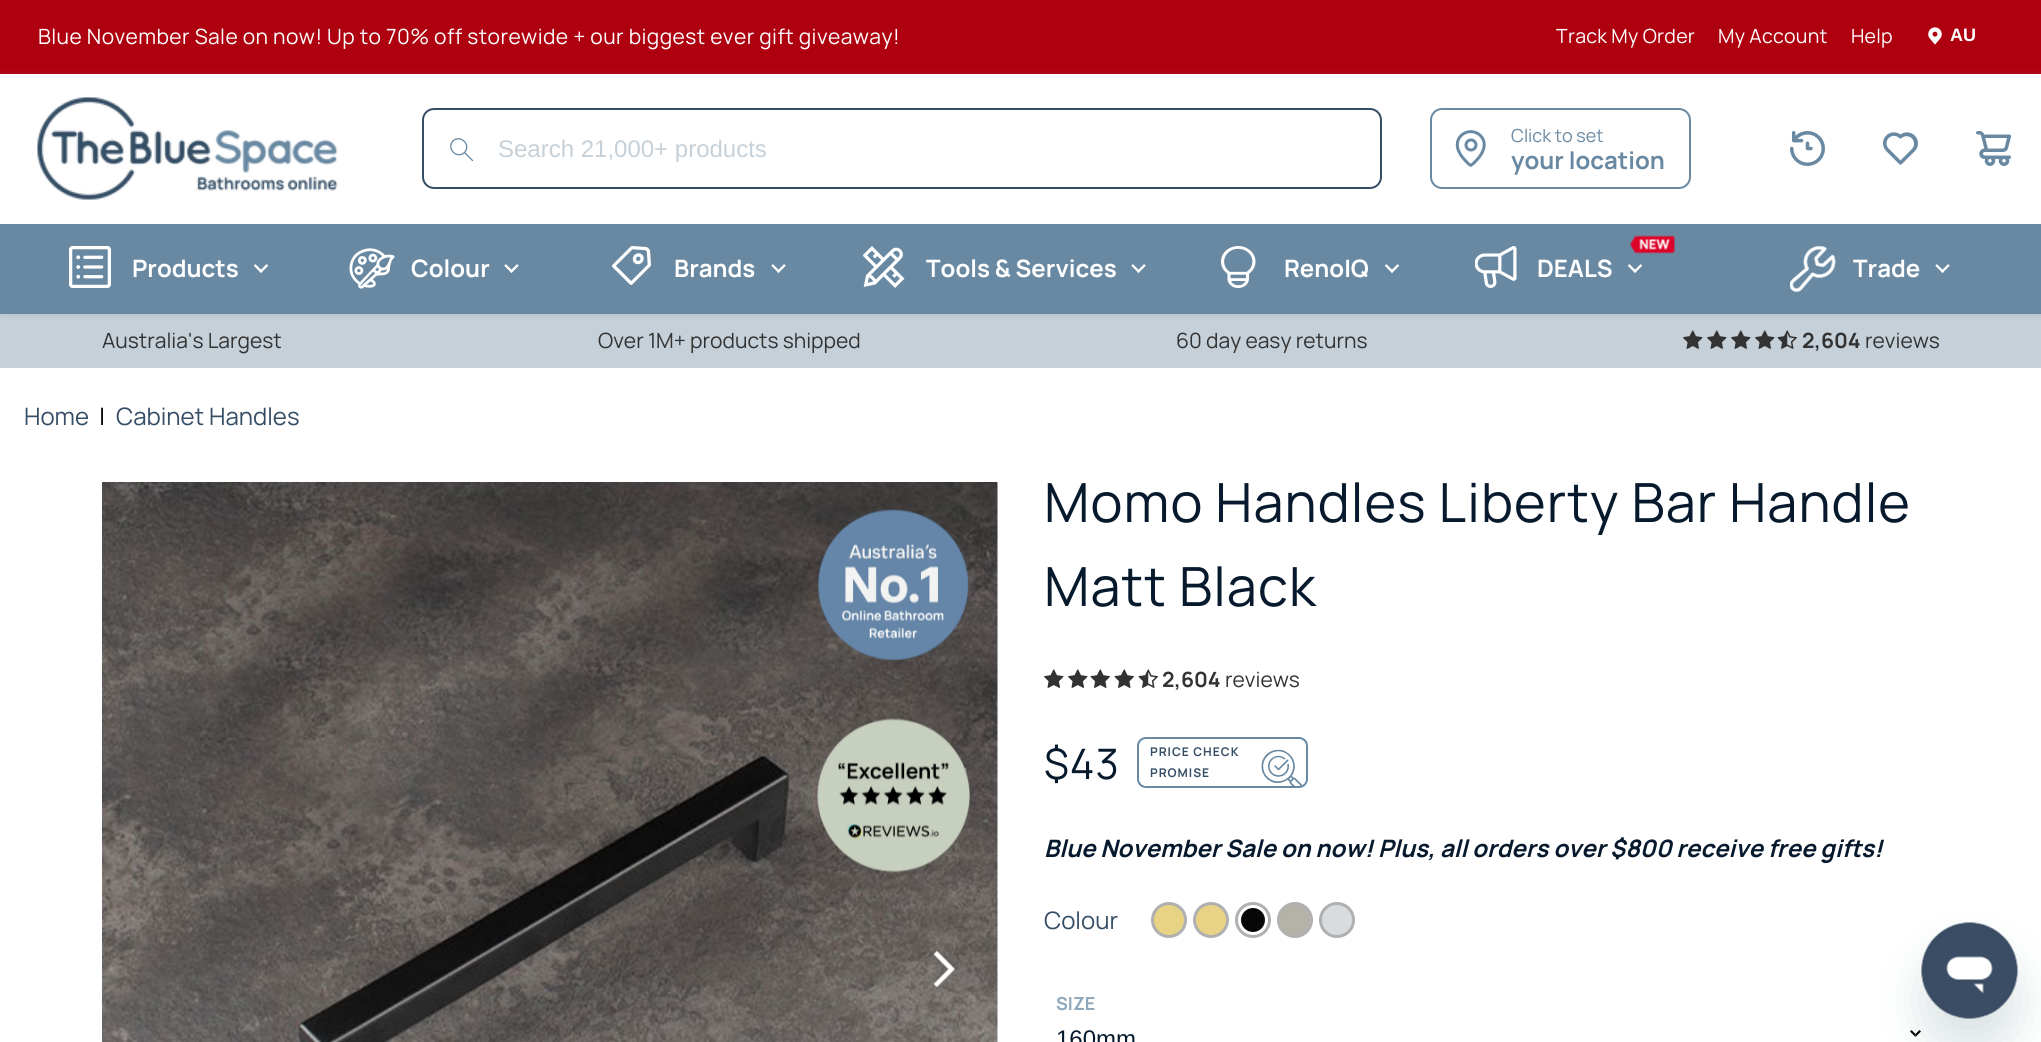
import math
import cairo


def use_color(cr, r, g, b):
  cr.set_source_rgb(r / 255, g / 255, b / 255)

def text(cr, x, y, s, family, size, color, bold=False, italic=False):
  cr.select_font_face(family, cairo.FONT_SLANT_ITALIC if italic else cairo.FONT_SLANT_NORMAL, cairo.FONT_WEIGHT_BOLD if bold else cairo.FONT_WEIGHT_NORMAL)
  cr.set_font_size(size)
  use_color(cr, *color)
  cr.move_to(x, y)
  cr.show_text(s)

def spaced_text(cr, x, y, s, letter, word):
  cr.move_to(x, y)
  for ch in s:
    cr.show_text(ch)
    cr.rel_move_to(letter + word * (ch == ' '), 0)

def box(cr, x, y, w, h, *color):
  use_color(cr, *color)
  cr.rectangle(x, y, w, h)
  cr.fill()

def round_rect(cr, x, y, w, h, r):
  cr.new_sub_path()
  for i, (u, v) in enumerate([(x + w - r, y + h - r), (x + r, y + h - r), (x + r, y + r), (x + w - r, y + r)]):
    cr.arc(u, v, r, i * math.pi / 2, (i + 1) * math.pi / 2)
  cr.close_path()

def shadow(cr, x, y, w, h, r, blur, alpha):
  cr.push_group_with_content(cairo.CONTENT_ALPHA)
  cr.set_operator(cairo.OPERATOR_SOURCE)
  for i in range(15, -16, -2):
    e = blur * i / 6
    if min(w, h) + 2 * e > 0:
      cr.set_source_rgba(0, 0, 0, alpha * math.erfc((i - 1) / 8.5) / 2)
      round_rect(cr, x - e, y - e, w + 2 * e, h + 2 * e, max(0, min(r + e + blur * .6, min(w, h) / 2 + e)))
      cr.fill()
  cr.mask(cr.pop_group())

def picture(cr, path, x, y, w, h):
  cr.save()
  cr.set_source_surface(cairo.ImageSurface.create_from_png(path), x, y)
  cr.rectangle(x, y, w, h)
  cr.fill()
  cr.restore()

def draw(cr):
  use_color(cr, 255, 255, 255)
  cr.paint()
  box(cr, 0, 0, 2041, 74, 175, 0, 15)
  picture(cr, "img_01.png", 1928, 27, 14, 18)
  box(cr, 0, 314, 2041, 54, 197, 208, 216)
  cr.save()
  cr.set_fill_rule(cairo.FILL_RULE_EVEN_ODD)
  cr.new_path()
  cr.move_to(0, 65)
  cr.line_to(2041, 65)
  cr.line_to(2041, 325)
  cr.line_to(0, 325)
  cr.close_path()
  cr.move_to(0, 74)
  cr.line_to(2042, 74)
  cr.line_to(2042, 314)
  cr.line_to(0, 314)
  cr.close_path()
  cr.clip()
  use_color(cr, 128, 128, 128)
  shadow(cr, 0, 75, 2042, 240, 0, 3, 0.25)
  cr.restore()
  picture(cr, "img_02.png", 37, 97, 301, 103)
  round_rect(cr, 423, 109, 958, 79, 11)
  use_color(cr, 53, 78, 102)
  cr.stroke()
  cr.new_path()
  cr.move_to(453, 141)
  cr.curve_to(460.5, 134, 471.5, 145, 464.5, 152.5)
  cr.curve_to(457, 159.5, 446, 148.5, 453, 141)
  cr.close_path()
  use_color(cr, 105, 137, 163)
  cr.set_line_width(1.3)
  cr.stroke()
  cr.new_path()
  cr.move_to(472.5, 160.5)
  cr.line_to(464.5, 152.5)
  cr.set_line_cap(cairo.LINE_CAP_ROUND)
  cr.stroke()
  round_rect(cr, 1431, 109, 259, 79, 11)
  cr.set_line_width(2)
  cr.set_line_cap(cairo.LINE_CAP_BUTT)
  cr.stroke()
  picture(cr, "img_03.png", 1455, 130, 31, 37)
  picture(cr, "img_04.png", 1790, 131, 35, 35)
  picture(cr, "img_05.png", 1883, 132, 35, 33)
  picture(cr, "img_06.png", 1976, 131, 35, 35)
  box(cr, 0, 224, 2041, 90, 105, 137, 163)
  picture(cr, "img_07.png", 69, 246, 42, 42)
  picture(cr, "img_08.png", 254, 264, 15, 9)
  picture(cr, "img_09.png", 349, 248, 46, 41)
  picture(cr, "img_10.png", 504, 264, 15, 9)
  picture(cr, "img_11.png", 612, 246, 39, 39)
  picture(cr, "img_10.png", 771, 264, 15, 9)
  picture(cr, "img_12.png", 863, 246, 42, 42)
  picture(cr, "img_10.png", 1131, 264, 15, 9)
  picture(cr, "img_13.png", 1221, 246, 35, 42)
  picture(cr, "img_08.png", 1385, 264, 15, 9)
  picture(cr, "img_14.png", 1475, 246, 42, 42)
  picture(cr, "img_15.png", 1630, 235, 45, 19)
  picture(cr, "img_08.png", 1628, 264, 15, 9)
  picture(cr, "img_16.png", 1790, 246, 46, 46)
  picture(cr, "img_10.png", 1935, 264, 15, 9)
  picture(cr, "img_17.png", 1683, 330, 20, 19)
  picture(cr, "img_17.png", 1707, 330, 20, 19)
  picture(cr, "img_17.png", 1731, 330, 20, 19)
  picture(cr, "img_17.png", 1755, 330, 20, 19)
  picture(cr, "img_18.png", 1777, 330, 20, 19)
  picture(cr, "img_19.png", 102, 482, 896, 560)
  picture(cr, "img_20.png", 818, 509, 151, 152)
  picture(cr, "img_21.png", 817, 718, 153, 155)
  picture(cr, "img_22.png", 932, 949, 27, 40)
  picture(cr, "img_23.png", 1044, 669, 20, 19)
  picture(cr, "img_23.png", 1068, 669, 20, 19)
  picture(cr, "img_24.png", 1090, 669, 20, 19)
  picture(cr, "img_24.png", 1114, 669, 20, 19)
  picture(cr, "img_25.png", 1138, 669, 20, 19)
  round_rect(cr, 1138, 738, 169, 49, 8)
  cr.stroke()
  picture(cr, "img_26.png", 1261, 749, 42, 37)
  use_color(cr, 232, 211, 132)
  cr.arc(1169, 920, 16.5, 0, 2 * math.pi)
  cr.fill_preserve()
  use_color(cr, 176, 176, 176)
  cr.set_line_width(3)
  cr.stroke()
  use_color(cr, 232, 211, 132)
  cr.arc(1211, 920, 16.5, 0, 2 * math.pi)
  cr.fill_preserve()
  use_color(cr, 176, 176, 176)
  cr.stroke()
  use_color(cr, 7, 7, 7)
  cr.arc(1253, 920, 13.5, 0, 2 * math.pi)
  cr.fill_preserve()
  use_color(cr, 255, 255, 255)
  cr.stroke()
  cr.arc(1253, 920, 16.5, 0, 2 * math.pi)
  use_color(cr, 176, 176, 176)
  cr.stroke()
  use_color(cr, 181, 178, 167)
  cr.arc(1295, 920, 16.5, 0, 2 * math.pi)
  cr.fill_preserve()
  use_color(cr, 176, 176, 176)
  cr.stroke()
  use_color(cr, 216, 220, 223)
  cr.arc(1337, 920, 16.5, 0, 2 * math.pi)
  cr.fill_preserve()
  use_color(cr, 176, 176, 176)
  cr.stroke()
  picture(cr, "img_27.png", 1910, 1030, 11, 7)
  use_color(cr, 23, 73, 77)
  shadow(cr, 1922, 953, 96, 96, 48, 22.5, 0.15)
  picture(cr, "img_28.png", 1921, 922, 97, 97)
  cr.select_font_face("Manrope")
  cr.set_font_size(21)
  use_color(cr, 255, 255, 255)
  spaced_text(cr, 38, 44, "Blue November Sale on now! Up to 70% off storewide + our biggest ever gift giveaway!", 0.42, 0)
  cr.set_font_size(19.5)
  spaced_text(cr, 1556, 43, "Track My Order", 0.25, 0)
  spaced_text(cr, 1718, 43, "My Account", 0.25, 0)
  spaced_text(cr, 1851, 43, "Help", 0.25, 0)
  text(cr, 1950, 41, "AU", "Liberation Sans", 18, (255, 255, 255), bold=True)
  text(cr, 498, 157, "Search 21,000+ products", "Liberation Sans", 24, (197, 208, 216))
  text(cr, 1511, 142, "Click to set", "Manrope", 18, (105, 137, 163))
  text(cr, 1511, 169, "your location", "Manrope", 24, (105, 137, 163), bold=True)
  text(cr, 132, 277, "Products", "Manrope", 24, (255, 255, 255), bold=True)
  text(cr, 411, 277, "Colour", "Manrope", 24, (255, 255, 255), bold=True)
  text(cr, 674, 277, "Brands", "Manrope", 24, (255, 255, 255), bold=True)
  text(cr, 926, 277, "Tools & Services", "Manrope", 24, (255, 255, 255), bold=True)
  text(cr, 1284, 277, "RenoIQ", "Manrope", 24, (255, 255, 255), bold=True)
  text(cr, 1537, 277, "DEALS", "Manrope", 24, (255, 255, 255), bold=True)
  text(cr, 1853, 277, "Trade", "Manrope", 24, (255, 255, 255), bold=True)
  text(cr, 102, 348, "Australia's Largest", "Manrope", 21, (51, 51, 51))
  text(cr, 598, 348, "Over 1M+ products shipped", "Manrope", 21, (51, 51, 51))
  text(cr, 1176, 348, "60 day easy returns", "Manrope", 21, (51, 51, 51))
  text(cr, 1802, 348, "2,604", "Manrope", 21, (51, 51, 51), bold=True)
  text(cr, 1865, 348, "reviews", "Manrope", 21, (51, 51, 51))
  text(cr, 24, 425, "Home", "Manrope", 24, (53, 78, 102))
  text(cr, 99, 425, "|", "Manrope", 24, (0, 0, 0))
  text(cr, 116, 425, "Cabinet Handles", "Manrope", 24, (53, 78, 102))
  cr.set_font_size(54)
  use_color(cr, 7, 26, 45)
  spaced_text(cr, 1044, 522, "Momo Handles Liberty Bar Handle", 1.1, 0)
  spaced_text(cr, 1044, 606, "Matt Black", 1.1, 0)
  text(cr, 1162, 687, "2,604", "Manrope", 21, (51, 51, 51), bold=True)
  text(cr, 1225, 687, "reviews", "Manrope", 21, (51, 51, 51))
  cr.set_font_size(42)
  use_color(cr, 7, 26, 45)
  spaced_text(cr, 1044, 779, "$43", 1, 0)
  cr.select_font_face("Manrope", cairo.FONT_SLANT_NORMAL, cairo.FONT_WEIGHT_BOLD)
  cr.set_font_size(12)
  use_color(cr, 53, 78, 102)
  spaced_text(cr, 1150, 756, "PRICE CHECK", 1, 0)
  spaced_text(cr, 1150, 777, "PROMISE", 1, 0)
  text(cr, 1044, 857, "Blue November Sale on now! Plus, all orders over $800 receive free gifts!", "Manrope", 24, (7, 26, 45), bold=True, italic=True)
  text(cr, 1044, 929, "Colour", "Manrope", 24, (53, 78, 102))
  text(cr, 1056, 1010, "SIZE", "Manrope", 18, (143, 167, 186), bold=True)
  text(cr, 1056, 1047, "160mm", "Liberation Sans", 24, (7, 26, 45))


surface = cairo.ImageSurface(cairo.FORMAT_RGB24, 2041, 1042)
cr = cairo.Context(surface)
options = cairo.FontOptions()
options.set_hint_metrics(cairo.HINT_METRICS_OFF)
options.set_hint_style(cairo.HINT_STYLE_NONE)
cr.set_font_options(options)
cr.set_miter_limit(4)
draw(cr)
surface.write_to_png("out.png")
